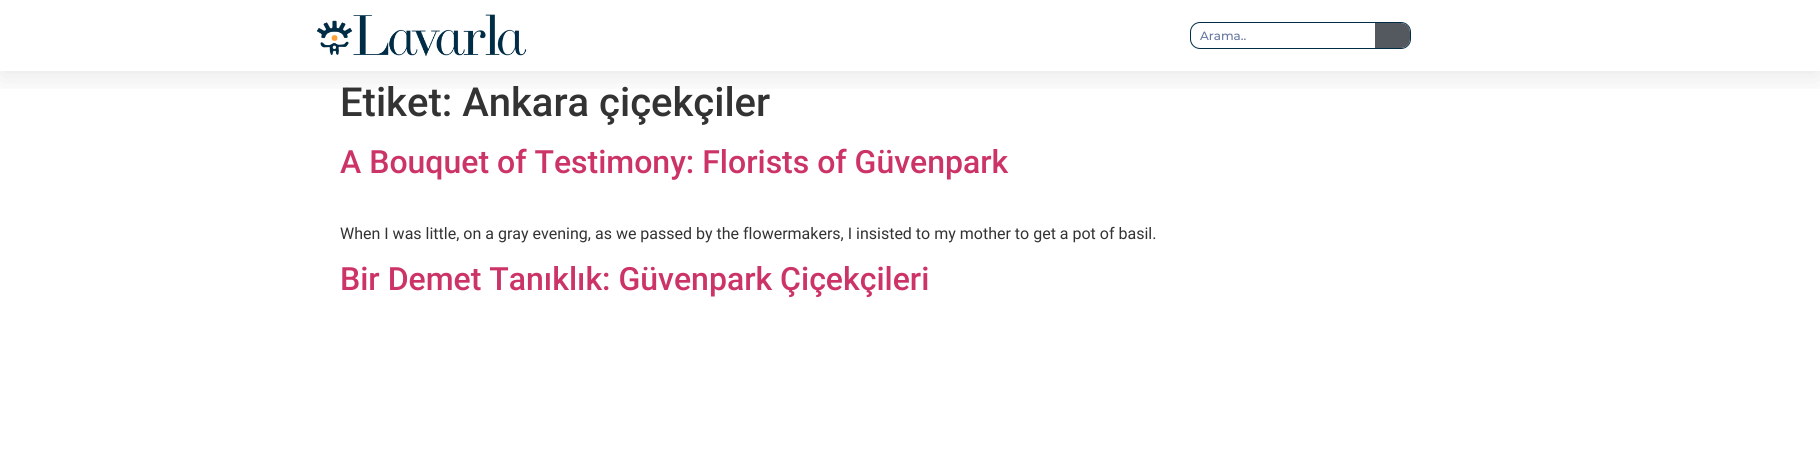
import math
import cairo


def use_color(cr, r, g, b):
  cr.set_source_rgb(r / 255, g / 255, b / 255)

def text(cr, x, y, s, family, size, color, bold=False, italic=False):
  cr.select_font_face(family, cairo.FONT_SLANT_ITALIC if italic else cairo.FONT_SLANT_NORMAL, cairo.FONT_WEIGHT_BOLD if bold else cairo.FONT_WEIGHT_NORMAL)
  cr.set_font_size(size)
  use_color(cr, *color)
  cr.move_to(x, y)
  cr.show_text(s)

def round_rect(cr, x, y, w, h, r):
  cr.new_sub_path()
  for i, (u, v) in enumerate([(x + w - r, y + h - r), (x + r, y + h - r), (x + r, y + r), (x + w - r, y + r)]):
    cr.arc(u, v, r, i * math.pi / 2, (i + 1) * math.pi / 2)
  cr.close_path()

def shadow(cr, x, y, w, h, r, blur, alpha):
  cr.push_group_with_content(cairo.CONTENT_ALPHA)
  cr.set_operator(cairo.OPERATOR_SOURCE)
  for i in range(15, -16, -2):
    e = blur * i / 6
    if min(w, h) + 2 * e > 0:
      cr.set_source_rgba(0, 0, 0, alpha * math.erfc((i - 1) / 8.5) / 2)
      round_rect(cr, x - e, y - e, w + 2 * e, h + 2 * e, max(0, min(r + e + blur * .6, min(w, h) / 2 + e)))
      cr.fill()
  cr.mask(cr.pop_group())

def picture(cr, path, x, y, w, h):
  cr.save()
  cr.set_source_surface(cairo.ImageSurface.create_from_png(path), x, y)
  cr.rectangle(x, y, w, h)
  cr.fill()
  cr.restore()

def draw(cr):
  use_color(cr, 255, 255, 255)
  cr.paint()
  cr.save()
  cr.rectangle(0, 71, 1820, 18)
  cr.clip()
  use_color(cr, 0, 0, 0)
  shadow(cr, 0, 5, 1820, 71, 0, 15, 0.1)
  cr.restore()
  picture(cr, "img_01.png", 316, 14, 211, 43)
  round_rect(cr, 1190.5, 22.5, 220, 26, 9.5)
  use_color(cr, 0, 44, 70)
  cr.set_line_width(1)
  cr.stroke()
  use_color(cr, 84, 89, 95)
  cr.new_path()
  cr.move_to(1375, 23)
  cr.line_to(1401, 23)
  cr.curve_to(1406, 23, 1410, 27, 1410, 32)
  cr.line_to(1410, 39)
  cr.curve_to(1410, 44, 1406, 48, 1401, 48)
  cr.line_to(1375, 48)
  cr.close_path()
  cr.fill()
  text(cr, 1200, 40, "Arama..", "Montserrat Medium", 12, (102, 118, 160))
  text(cr, 340, 116, "Etiket: Ankara çiçekçiler", "Roboto Medium", 40, (51, 51, 51))
  text(cr, 340, 173, "A Bouquet of Testimony: Florists of Güvenpark", "Roboto Medium", 32, (204, 51, 102))
  text(cr, 340, 239, "When I was little, on a gray evening, as we passed by the flowermakers, I insisted to my mother to get a pot of basil.", "Roboto", 16, (51, 51, 51))
  text(cr, 340, 290, "Bir Demet Tanıklık: Güvenpark Çiçekçileri", "Roboto Medium", 32, (204, 51, 102))


surface = cairo.ImageSurface(cairo.FORMAT_RGB24, 1820, 471)
cr = cairo.Context(surface)
options = cairo.FontOptions()
options.set_hint_metrics(cairo.HINT_METRICS_OFF)
options.set_hint_style(cairo.HINT_STYLE_NONE)
cr.set_font_options(options)
cr.set_miter_limit(4)
draw(cr)
surface.write_to_png("out.png")
